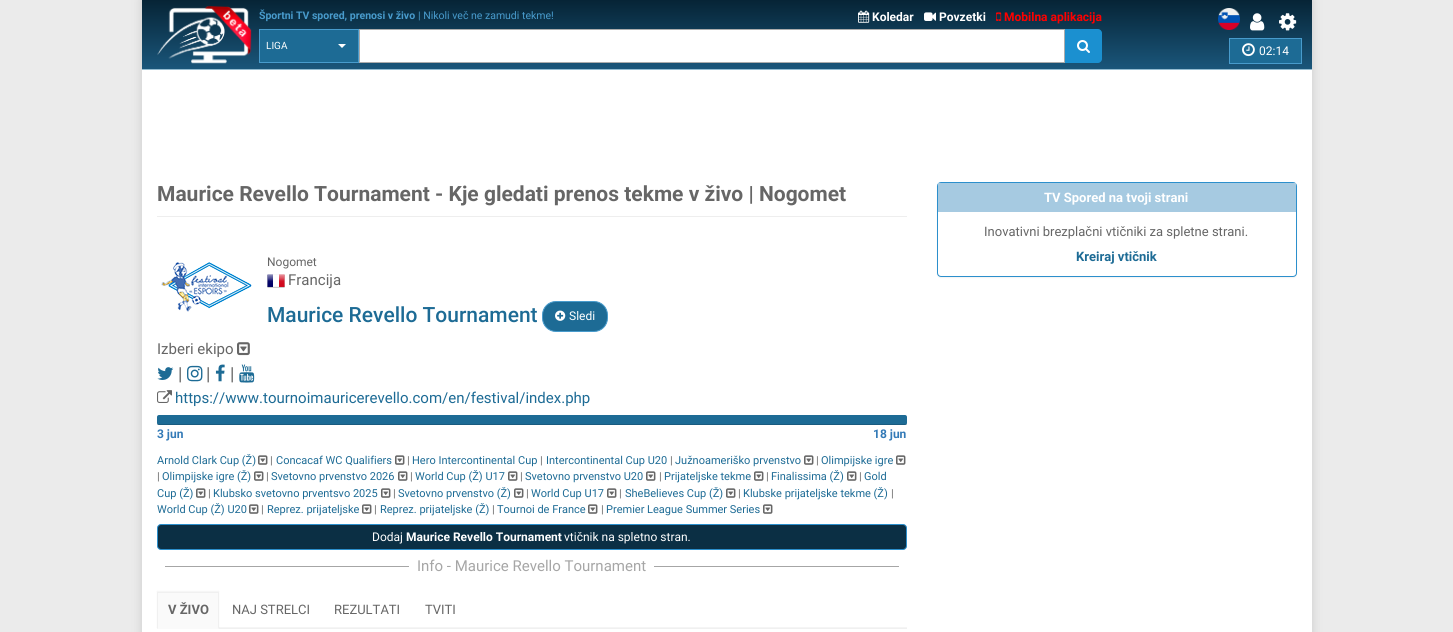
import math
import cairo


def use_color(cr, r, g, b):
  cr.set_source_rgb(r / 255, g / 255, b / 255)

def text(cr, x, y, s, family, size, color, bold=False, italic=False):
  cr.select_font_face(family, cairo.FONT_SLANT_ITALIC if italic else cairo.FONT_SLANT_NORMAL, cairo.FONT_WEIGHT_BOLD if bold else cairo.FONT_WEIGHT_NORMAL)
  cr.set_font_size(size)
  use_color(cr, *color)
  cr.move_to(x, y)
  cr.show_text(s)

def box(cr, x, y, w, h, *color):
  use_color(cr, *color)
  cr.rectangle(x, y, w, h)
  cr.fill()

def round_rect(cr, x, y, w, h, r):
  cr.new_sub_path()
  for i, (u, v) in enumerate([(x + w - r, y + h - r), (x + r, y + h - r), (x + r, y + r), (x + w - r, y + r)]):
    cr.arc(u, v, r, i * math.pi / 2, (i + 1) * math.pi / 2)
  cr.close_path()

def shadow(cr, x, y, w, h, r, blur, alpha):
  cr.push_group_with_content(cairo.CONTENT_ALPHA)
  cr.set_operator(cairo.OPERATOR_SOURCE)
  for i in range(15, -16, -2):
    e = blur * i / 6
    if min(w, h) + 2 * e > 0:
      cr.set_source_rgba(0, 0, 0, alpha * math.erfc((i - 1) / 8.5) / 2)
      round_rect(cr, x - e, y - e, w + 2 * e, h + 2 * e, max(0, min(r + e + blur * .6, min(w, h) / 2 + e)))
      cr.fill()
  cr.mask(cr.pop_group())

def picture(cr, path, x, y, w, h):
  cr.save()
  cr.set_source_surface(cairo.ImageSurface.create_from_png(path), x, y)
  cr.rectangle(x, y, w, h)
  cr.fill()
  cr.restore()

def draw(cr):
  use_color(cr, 235, 235, 235)
  cr.paint()
  use_color(cr, 202, 202, 202)
  shadow(cr, 142, 0, 1170, 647, 0, 5, 1)
  box(cr, 142, 70, 1170, 562, 255, 255, 255)
  box(cr, 142, 69, 1170, 1, 148, 188, 209)
  gradient = cairo.LinearGradient(727, 0, 727, 69)
  gradient.add_color_stop_rgba(0, 0.024, 0.141, 0.208, 1)
  gradient.add_color_stop_rgba(1, 0.102, 0.337, 0.482, 1)
  cr.set_source(gradient)
  cr.rectangle(142, 0, 1170, 69)
  cr.fill()
  picture(cr, "img_01.png", 157, 6, 95, 58)
  picture(cr, "img_02.png", 858, 10, 12, 13)
  picture(cr, "img_03.png", 924, 12, 12, 9)
  picture(cr, "img_04.png", 996, 12, 6, 9)
  use_color(cr, 29, 107, 149)
  cr.rectangle(259.5, 29.5, 99, 33)
  cr.fill_preserve()
  use_color(cr, 72, 155, 204)
  cr.set_line_width(1)
  cr.stroke()
  use_color(cr, 255, 255, 255)
  cr.new_path()
  cr.move_to(338, 44)
  cr.line_to(346, 44)
  cr.line_to(342, 48)
  cr.close_path()
  cr.fill()
  cr.rectangle(359.5, 29.5, 705, 33)
  cr.fill_preserve()
  use_color(cr, 172, 172, 172)
  cr.stroke()
  use_color(cr, 27, 144, 208)
  cr.new_path()
  cr.move_to(1065, 29)
  cr.line_to(1098, 29)
  cr.curve_to(1100, 29, 1102, 31, 1102, 33)
  cr.line_to(1102, 59)
  cr.curve_to(1102, 61, 1100, 63, 1098, 63)
  cr.line_to(1065, 63)
  cr.close_path()
  cr.fill()
  picture(cr, "img_05.png", 1077, 40, 13, 13)
  picture(cr, "img_06.png", 1218, 8, 22, 22)
  picture(cr, "img_07.png", 1250, 13, 15, 18)
  picture(cr, "img_08.png", 1279, 13, 18, 18)
  use_color(cr, 29, 107, 149)
  cr.rectangle(1229.5, 38.5, 72, 25)
  cr.fill_preserve()
  use_color(cr, 72, 155, 204)
  cr.stroke()
  picture(cr, "img_09.png", 1242, 43, 13, 14)
  box(cr, 157, 216, 750, 1, 238, 238, 238)
  picture(cr, "img_10.png", 267, 274, 18, 14)
  use_color(cr, 29, 107, 149)
  round_rect(cr, 542.5, 301.5, 65, 30, 13.5)
  cr.fill_preserve()
  use_color(cr, 72, 155, 204)
  cr.stroke()
  picture(cr, "img_11.png", 555, 310, 11, 11)
  picture(cr, "img_12.png", 237, 342, 13, 14)
  picture(cr, "img_13.png", 157, 367, 17, 13)
  picture(cr, "img_14.png", 187, 365, 16, 17)
  picture(cr, "img_15.png", 215, 364, 10, 18)
  picture(cr, "img_16.png", 239, 364, 16, 19)
  picture(cr, "img_17.png", 157, 390, 15, 13)
  picture(cr, "img_18.png", 161, 262, 91, 50)
  use_color(cr, 29, 107, 149)
  round_rect(cr, 157, 415, 750, 10, 2)
  cr.fill()
  cr.set_source_rgba(0, 0, 0, 0.15)
  cr.rectangle(157, 424, 750, 1)
  cr.fill()
  picture(cr, "img_19.png", 258, 455, 10, 10)
  picture(cr, "img_19.png", 395, 455, 10, 10)
  picture(cr, "img_19.png", 804, 455, 10, 10)
  picture(cr, "img_19.png", 896, 455, 10, 10)
  picture(cr, "img_19.png", 254, 471, 10, 10)
  picture(cr, "img_19.png", 398, 471, 10, 10)
  picture(cr, "img_19.png", 508, 471, 10, 10)
  picture(cr, "img_19.png", 646, 471, 10, 10)
  picture(cr, "img_19.png", 754, 471, 10, 10)
  picture(cr, "img_19.png", 847, 471, 10, 10)
  picture(cr, "img_19.png", 196, 488, 10, 10)
  picture(cr, "img_19.png", 381, 488, 10, 10)
  picture(cr, "img_19.png", 514, 488, 10, 10)
  picture(cr, "img_19.png", 607, 488, 10, 10)
  picture(cr, "img_19.png", 726, 488, 10, 10)
  picture(cr, "img_19.png", 249, 504, 10, 10)
  picture(cr, "img_19.png", 362, 504, 10, 10)
  picture(cr, "img_19.png", 588, 504, 10, 10)
  picture(cr, "img_19.png", 763, 504, 10, 10)
  use_color(cr, 11, 47, 68)
  round_rect(cr, 157.5, 524.5, 749, 25, 3.5)
  cr.fill_preserve()
  use_color(cr, 44, 143, 204)
  cr.stroke()
  box(cr, 165, 566, 244, 1, 166, 166, 166)
  box(cr, 654, 566, 245, 1, 166, 166, 166)
  box(cr, 219, 627, 688, 1, 245, 245, 245)
  box(cr, 219, 628, 688, 1, 240, 240, 240)
  use_color(cr, 0, 0, 0)
  shadow(cr, 157, 591, 62, 37, 0, 0.5, 0.04)
  box(cr, 157, 593, 62, 36, 250, 250, 250)
  box(cr, 157, 592, 62, 1, 240, 240, 240)
  cr.new_path()
  cr.move_to(219, 592)
  cr.line_to(219, 629)
  cr.line_to(218, 628)
  cr.line_to(218, 593)
  cr.close_path()
  cr.move_to(157, 629)
  cr.line_to(157, 592)
  cr.line_to(158, 593)
  cr.line_to(158, 628)
  cr.close_path()
  cr.fill()
  use_color(cr, 0, 0, 0)
  shadow(cr, 937, 183, 360, 95, 4, 0.5, 0.05)
  use_color(cr, 255, 255, 255)
  round_rect(cr, 937.5, 182.5, 359, 94, 3.5)
  cr.fill_preserve()
  use_color(cr, 44, 143, 204)
  cr.stroke()
  box(cr, 938, 183, 358, 29, 166, 202, 225)
  text(cr, 259, 19, "Športni TV spored, prenosi v živo", "Roboto", 10.5, (72, 155, 204), bold=True)
  text(cr, 418, 19, "| Nikoli več ne zamudi tekme!", "Roboto", 10.5, (72, 155, 204))
  text(cr, 872, 21, "Koledar", "Roboto", 12, (255, 255, 255), bold=True)
  text(cr, 939, 21, "Povzetki", "Roboto", 12, (255, 255, 255), bold=True)
  text(cr, 1004, 21, "Mobilna aplikacija", "Roboto", 12, (255, 0, 0), bold=True)
  text(cr, 266, 49, "LIGA", "Roboto", 10, (255, 255, 255))
  text(cr, 1259, 55, "02:14", "Roboto", 12, (255, 255, 255))
  text(cr, 157, 201, "Maurice Revello Tournament - Kje gledati prenos tekme v živo | Nogomet", "Roboto", 21, (102, 102, 102), bold=True)
  text(cr, 267, 266, "Nogomet", "Roboto", 12, (102, 102, 102))
  text(cr, 288, 285, "Francija", "Roboto", 15, (102, 102, 102))
  text(cr, 267, 322, "Maurice Revello Tournament", "Roboto Medium", 21, (29, 107, 149))
  text(cr, 569, 320, "Sledi", "Roboto", 12, (255, 255, 255))
  text(cr, 157, 354, "Izberi ekipo", "Roboto", 15, (102, 102, 102))
  text(cr, 178, 380, "|", "Roboto", 18, (102, 102, 102))
  text(cr, 206, 380, "|", "Roboto", 18, (102, 102, 102))
  text(cr, 230, 380, "|", "Roboto", 18, (102, 102, 102))
  text(cr, 175, 403, "https://www.tournoimauricerevello.com/en/festival/index.php", "Roboto", 15, (29, 107, 149))
  text(cr, 157, 438, "3 jun", "Roboto", 12, (51, 122, 183), bold=True)
  text(cr, 873, 438, "18 jun", "Roboto", 12, (51, 122, 183), bold=True)
  text(cr, 157, 464, "Arnold Clark Cup (Ž)", "Roboto", 11, (29, 107, 149))
  text(cr, 270, 464, "|", "Roboto", 11, (102, 102, 102))
  text(cr, 276, 464, "Concacaf WC Qualifiers", "Roboto", 11, (29, 107, 149))
  text(cr, 407, 464, "|", "Roboto", 11, (102, 102, 102))
  text(cr, 412, 464, "Hero Intercontinental Cup", "Roboto", 11, (29, 107, 149))
  text(cr, 540, 464, "|", "Roboto", 11, (102, 102, 102))
  text(cr, 546, 464, "Intercontinental Cup U20", "Roboto", 11, (29, 107, 149))
  text(cr, 670, 464, "|", "Roboto", 11, (102, 102, 102))
  text(cr, 675, 464, "Južnoameriško prvenstvo", "Roboto", 11, (29, 107, 149))
  text(cr, 816, 464, "|", "Roboto", 11, (102, 102, 102))
  text(cr, 821, 464, "Olimpijske igre", "Roboto", 11, (29, 107, 149))
  text(cr, 157, 480, "|", "Roboto", 11, (102, 102, 102))
  text(cr, 162, 480, "Olimpijske igre (Ž)", "Roboto", 11, (29, 107, 149))
  text(cr, 266, 480, "|", "Roboto", 11, (102, 102, 102))
  text(cr, 271, 480, "Svetovno prvenstvo 2026", "Roboto", 11, (29, 107, 149))
  text(cr, 410, 480, "|", "Roboto", 11, (102, 102, 102))
  text(cr, 415, 480, "World Cup (Ž) U17", "Roboto", 11, (29, 107, 149))
  text(cr, 520, 480, "|", "Roboto", 11, (102, 102, 102))
  text(cr, 525, 480, "Svetovno prvenstvo U20", "Roboto", 11, (29, 107, 149))
  text(cr, 659, 480, "|", "Roboto", 11, (102, 102, 102))
  text(cr, 664, 480, "Prijateljske tekme", "Roboto", 11, (29, 107, 149))
  text(cr, 766, 480, "|", "Roboto", 11, (102, 102, 102))
  text(cr, 771, 480, "Finalissima (Ž)", "Roboto", 11, (29, 107, 149))
  text(cr, 859, 480, "|", "Roboto", 11, (102, 102, 102))
  text(cr, 864, 480, "Gold", "Roboto", 11, (29, 107, 149))
  text(cr, 157, 497, "Cup (Ž)", "Roboto", 11, (29, 107, 149))
  text(cr, 208, 497, "|", "Roboto", 11, (102, 102, 102))
  text(cr, 213, 497, "Klubsko svetovno prventsvo 2025", "Roboto", 11, (29, 107, 149))
  text(cr, 393, 497, "|", "Roboto", 11, (102, 102, 102))
  text(cr, 398, 497, "Svetovno prvenstvo (Ž)", "Roboto", 11, (29, 107, 149))
  text(cr, 526, 497, "|", "Roboto", 11, (102, 102, 102))
  text(cr, 531, 497, "World Cup U17", "Roboto", 11, (29, 107, 149))
  text(cr, 619, 497, "|", "Roboto", 11, (102, 102, 102))
  text(cr, 625, 497, "SheBelieves Cup (Ž)", "Roboto", 11, (29, 107, 149))
  text(cr, 738, 497, "|", "Roboto", 11, (102, 102, 102))
  text(cr, 743, 497, "Klubske prijateljske tekme (Ž)", "Roboto", 11, (29, 107, 149))
  text(cr, 891, 497, "|", "Roboto", 11, (102, 102, 102))
  text(cr, 157, 513, "World Cup (Ž) U20", "Roboto", 11, (29, 107, 149))
  text(cr, 261, 513, "|", "Roboto", 11, (102, 102, 102))
  text(cr, 267, 513, "Reprez. prijateljske", "Roboto", 11, (29, 107, 149))
  text(cr, 374, 513, "|", "Roboto", 11, (102, 102, 102))
  text(cr, 380, 513, "Reprez. prijateljske (Ž)", "Roboto", 11, (29, 107, 149))
  text(cr, 492, 513, "|", "Roboto", 11, (102, 102, 102))
  text(cr, 497, 513, "Tournoi de France", "Roboto", 11, (29, 107, 149))
  text(cr, 601, 513, "|", "Roboto", 11, (102, 102, 102))
  text(cr, 606, 513, "Premier League Summer Series", "Roboto", 11, (29, 107, 149))
  text(cr, 372, 541, "Dodaj", "Roboto", 12, (255, 255, 255))
  text(cr, 406, 541, "Maurice Revello Tournament", "Roboto", 12, (255, 255, 255), bold=True)
  text(cr, 564, 541, "vtičnik na spletno stran.", "Roboto", 12, (255, 255, 255))
  text(cr, 417, 571, "Info - Maurice Revello Tournament", "Roboto", 15, (166, 166, 166))
  text(cr, 168, 614, "V ŽIVO", "Roboto", 13, (102, 102, 102), bold=True)
  text(cr, 232, 614, "NAJ STRELCI", "Roboto", 13, (102, 102, 102))
  text(cr, 334, 614, "REZULTATI", "Roboto", 13, (102, 102, 102))
  text(cr, 425, 614, "TVITI", "Roboto", 13, (102, 102, 102))
  text(cr, 1044, 202, "TV Spored na tvoji strani", "Roboto", 13, (255, 255, 255), bold=True)
  text(cr, 984, 236, "Inovativni brezplačni vtičniki za spletne strani.", "Roboto", 13, (102, 102, 102))
  text(cr, 1076, 261, "Kreiraj vtičnik", "Roboto", 13, (29, 107, 149), bold=True)


surface = cairo.ImageSurface(cairo.FORMAT_RGB24, 1453, 632)
cr = cairo.Context(surface)
options = cairo.FontOptions()
options.set_hint_metrics(cairo.HINT_METRICS_OFF)
options.set_hint_style(cairo.HINT_STYLE_NONE)
cr.set_font_options(options)
cr.set_miter_limit(4)
draw(cr)
surface.write_to_png("out.png")
